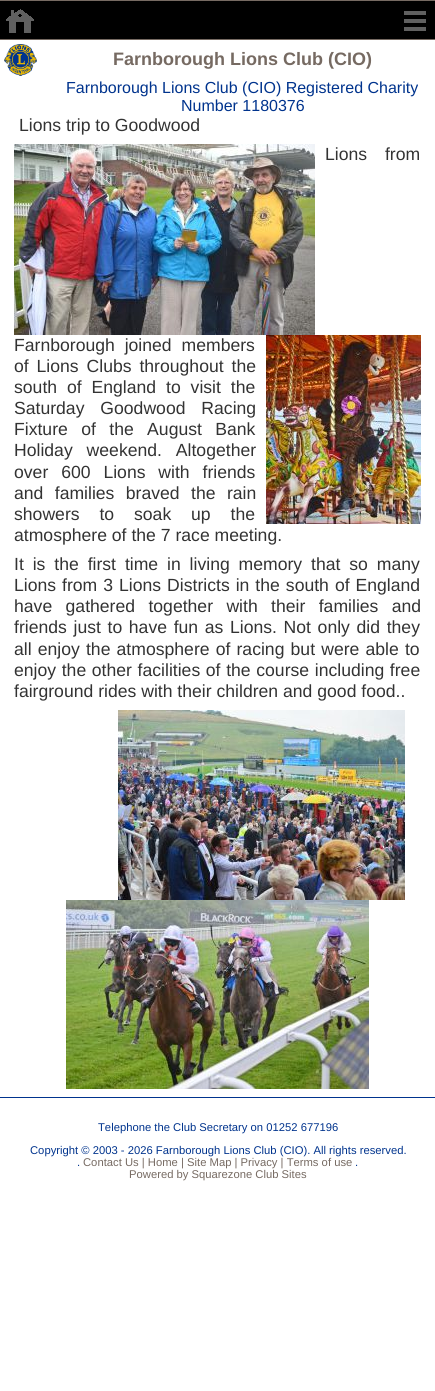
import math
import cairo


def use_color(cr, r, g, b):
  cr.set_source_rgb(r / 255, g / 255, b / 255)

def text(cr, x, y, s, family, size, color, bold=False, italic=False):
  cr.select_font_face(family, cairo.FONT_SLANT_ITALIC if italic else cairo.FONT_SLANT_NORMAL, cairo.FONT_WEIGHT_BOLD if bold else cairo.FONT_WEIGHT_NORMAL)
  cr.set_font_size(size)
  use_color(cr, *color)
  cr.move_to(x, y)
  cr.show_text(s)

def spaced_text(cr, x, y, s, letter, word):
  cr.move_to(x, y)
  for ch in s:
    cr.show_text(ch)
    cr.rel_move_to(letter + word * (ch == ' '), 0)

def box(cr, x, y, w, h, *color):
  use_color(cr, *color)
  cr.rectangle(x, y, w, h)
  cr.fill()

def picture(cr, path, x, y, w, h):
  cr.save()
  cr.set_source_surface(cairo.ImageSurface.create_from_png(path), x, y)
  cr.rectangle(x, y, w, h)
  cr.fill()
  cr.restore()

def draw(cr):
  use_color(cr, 255, 255, 255)
  cr.paint()
  box(cr, 0, 1, 435, 38, 0, 0, 0)
  box(cr, 0, 0, 435, 1, 118, 106, 98)
  box(cr, 0, 39, 435, 1, 118, 106, 98)
  picture(cr, "img_01.png", 6, 9, 28, 24)
  picture(cr, "img_02.png", 404, 11, 22, 20)
  picture(cr, "img_03.png", 4, 44, 33, 32)
  picture(cr, "img_04.png", 14, 144, 301, 191)
  picture(cr, "img_05.png", 266, 335, 155, 189)
  picture(cr, "img_06.png", 118, 710, 287, 190)
  picture(cr, "img_07.png", 66, 900, 303, 189)
  box(cr, 0, 1097, 435, 1, 0, 51, 141)
  text(cr, 113, 65, "Farnborough Lions Club (CIO)", "Liberation Sans", 18, (118, 106, 98), bold=True)
  text(cr, 66, 93, "Farnborough Lions Club (CIO) Registered Charity", "Liberation Sans", 16, (0, 51, 141))
  text(cr, 181, 111, "Number 1180376", "Liberation Sans", 16, (0, 51, 141))
  text(cr, 19, 131, "Lions trip to Goodwood", "Liberation Sans", 17.6, (51, 51, 51))
  spaced_text(cr, 325, 160, "Lions from", 0, 13)
  spaced_text(cr, 14, 351, "Farnborough joined members", 0, 5)
  spaced_text(cr, 14, 372, "of Lions Clubs throughout the", 0, 3)
  spaced_text(cr, 14, 393, "south of England to visit the", 0, 5)
  spaced_text(cr, 14, 414, "Saturday Goodwood Racing", 0, 11)
  spaced_text(cr, 14, 435, "Fixture of the August Bank", 0, 8.5)
  spaced_text(cr, 14, 456, "Holiday weekend. Altogether", 0, 9)
  spaced_text(cr, 14, 478, "over 600 Lions with friends", 0, 8)
  spaced_text(cr, 14, 499, "and families braved the rain", 0, 6.5)
  spaced_text(cr, 14, 520, "showers to soak up the", 0, 15)
  text(cr, 14, 541, "atmosphere of the 7 race meeting.", "Liberation Sans", 17.6, (51, 51, 51))
  spaced_text(cr, 14, 570, "It is the first time in living memory that so many", 0, 4)
  spaced_text(cr, 14, 591, "Lions from 3 Lions Districts in the south of England", 0, 1.1)
  spaced_text(cr, 14, 612, "have gathered together with their families and", 0, 8.5)
  spaced_text(cr, 14, 633, "friends just to have fun as Lions. Not only did they", 0, 1.75)
  spaced_text(cr, 14, 655, "all enjoy the atmosphere of racing but were able to", 0, 1.25)
  spaced_text(cr, 14, 676, "enjoy the other facilities of the course including free", 0, 0.75)
  text(cr, 14, 697, "fairground rides with their children and good food..", "Liberation Sans", 17.6, (51, 51, 51))
  text(cr, 98, 1131, "Telephone the Club Secretary on 01252 677196", "Liberation Sans", 11.25, (0, 51, 141))
  text(cr, 30, 1154, "Copyright © 2003 - 2026 Farnborough Lions Club (CIO). All rights reserved.", "Liberation Sans", 11.25, (0, 51, 141))
  text(cr, 77, 1166, ".", "Liberation Sans", 11.25, (0, 51, 141))
  text(cr, 83, 1166, "Contact Us | Home | Site Map | Privacy | Terms of use", "Liberation Sans", 11.25, (118, 106, 98))
  text(cr, 355, 1166, ".", "Liberation Sans", 11.25, (0, 51, 141))
  text(cr, 129, 1178, "Powered by Squarezone Club Sites", "Liberation Sans", 11.25, (118, 106, 98))


surface = cairo.ImageSurface(cairo.FORMAT_RGB24, 435, 1391)
cr = cairo.Context(surface)
options = cairo.FontOptions()
options.set_hint_metrics(cairo.HINT_METRICS_OFF)
options.set_hint_style(cairo.HINT_STYLE_NONE)
cr.set_font_options(options)
cr.set_miter_limit(4)
draw(cr)
surface.write_to_png("out.png")
